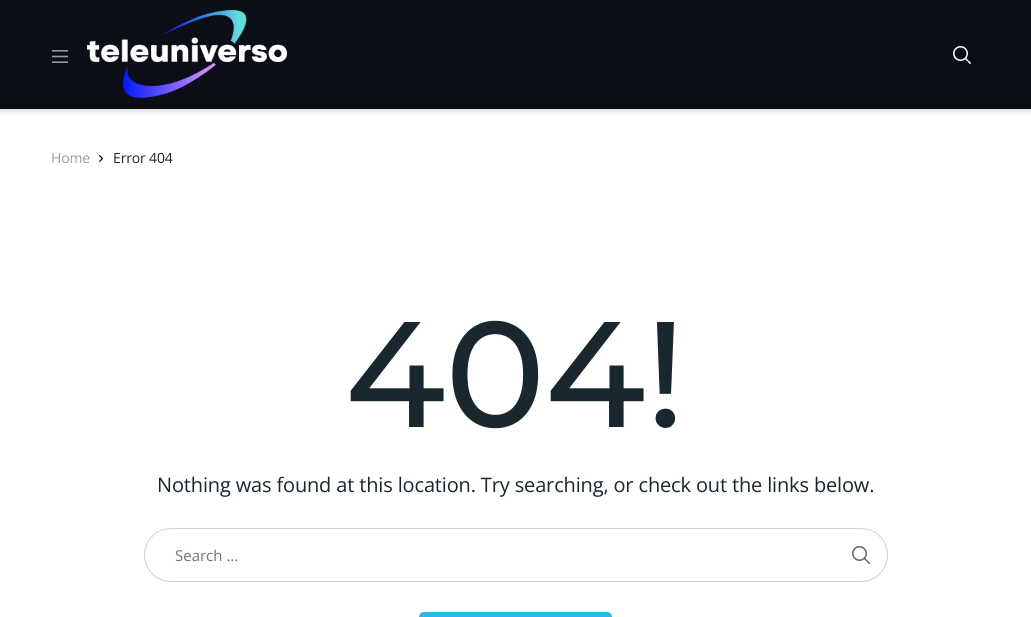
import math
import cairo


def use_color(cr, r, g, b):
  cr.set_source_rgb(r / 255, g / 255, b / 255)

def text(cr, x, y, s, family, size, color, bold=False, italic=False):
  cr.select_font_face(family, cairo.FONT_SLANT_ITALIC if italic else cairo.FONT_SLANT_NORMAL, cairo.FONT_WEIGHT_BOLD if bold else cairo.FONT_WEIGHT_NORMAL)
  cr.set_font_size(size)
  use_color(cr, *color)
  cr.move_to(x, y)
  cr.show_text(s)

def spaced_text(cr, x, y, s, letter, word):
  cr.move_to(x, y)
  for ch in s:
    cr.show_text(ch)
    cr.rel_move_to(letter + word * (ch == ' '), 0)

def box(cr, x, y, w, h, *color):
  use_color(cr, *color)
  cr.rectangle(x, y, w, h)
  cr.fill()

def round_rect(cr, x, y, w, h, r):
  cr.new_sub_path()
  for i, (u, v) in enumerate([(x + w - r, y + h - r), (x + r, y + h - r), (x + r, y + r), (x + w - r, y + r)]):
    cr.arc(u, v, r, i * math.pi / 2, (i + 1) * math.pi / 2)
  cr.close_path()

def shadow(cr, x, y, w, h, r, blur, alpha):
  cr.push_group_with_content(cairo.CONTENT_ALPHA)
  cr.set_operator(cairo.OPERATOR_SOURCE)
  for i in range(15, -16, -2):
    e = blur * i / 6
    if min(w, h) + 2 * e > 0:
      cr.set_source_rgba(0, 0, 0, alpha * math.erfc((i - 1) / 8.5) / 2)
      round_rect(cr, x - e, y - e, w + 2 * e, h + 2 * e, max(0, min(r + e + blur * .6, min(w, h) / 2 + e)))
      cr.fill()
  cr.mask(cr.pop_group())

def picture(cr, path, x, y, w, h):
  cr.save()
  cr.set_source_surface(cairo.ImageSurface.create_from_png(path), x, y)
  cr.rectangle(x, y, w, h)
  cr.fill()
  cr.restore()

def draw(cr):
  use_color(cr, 255, 255, 255)
  cr.paint()
  use_color(cr, 51, 51, 51)
  shadow(cr, 0, 0, 1031, 109, 0, 4, 0.3)
  box(cr, 0, 0, 1031, 109, 12, 14, 23)
  picture(cr, "img_01.png", 52, 50, 16, 13)
  picture(cr, "img_02.png", 87, 10, 200, 88)
  picture(cr, "img_03.png", 953, 46, 18, 18)
  picture(cr, "img_04.png", 99, 155, 4, 7)
  round_rect(cr, 144.5, 528.5, 743, 53, 26.5)
  use_color(cr, 208, 208, 210)
  cr.set_line_width(1)
  cr.stroke()
  picture(cr, "img_05.png", 852, 546, 18, 18)
  use_color(cr, 36, 186, 239)
  round_rect(cr, 420, 613, 191, 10, 4)
  cr.fill_preserve()
  cr.set_line_width(2)
  cr.stroke()
  cr.select_font_face("Open Sans")
  cr.set_font_size(14)
  use_color(cr, 148, 156, 176)
  spaced_text(cr, 51, 163, "Home", -0.15, 0)
  use_color(cr, 25, 39, 46)
  spaced_text(cr, 113, 163, "Error 404", -0.15, 0)
  cr.select_font_face("Montserrat Medium")
  cr.set_font_size(150)
  spaced_text(cr, 345, 427, "404!", -0.15, 0)
  cr.select_font_face("Open Sans")
  cr.set_font_size(20)
  spaced_text(cr, 157, 492, "Nothing was found at this location. Try searching, or check out the links below.", -0.15, 0)
  text(cr, 175, 561, "Search …", "Open Sans", 15, (108, 117, 125))


surface = cairo.ImageSurface(cairo.FORMAT_RGB24, 1031, 617)
cr = cairo.Context(surface)
options = cairo.FontOptions()
options.set_hint_metrics(cairo.HINT_METRICS_OFF)
options.set_hint_style(cairo.HINT_STYLE_NONE)
cr.set_font_options(options)
cr.set_miter_limit(4)
draw(cr)
surface.write_to_png("out.png")
